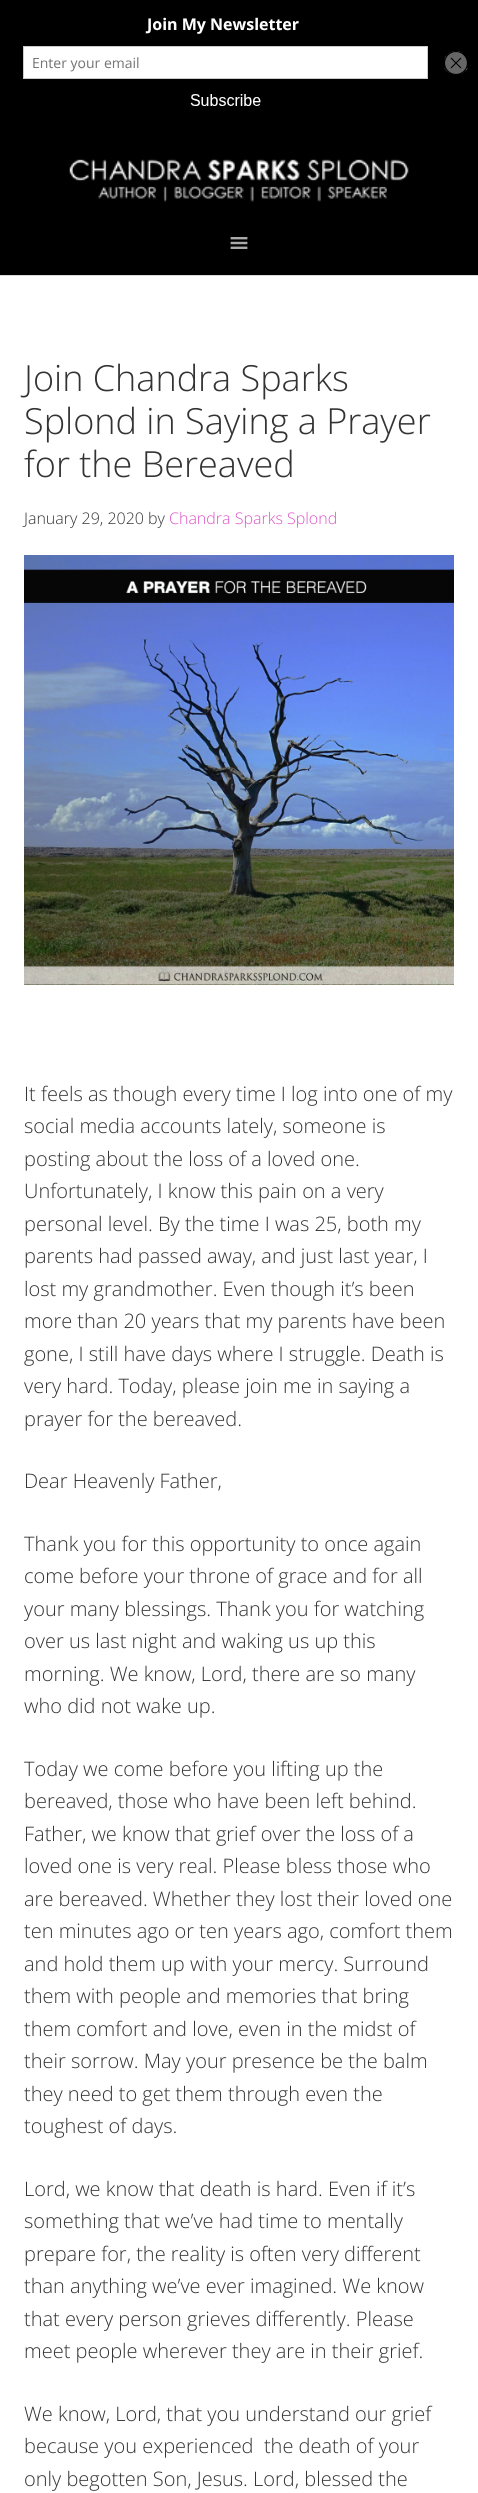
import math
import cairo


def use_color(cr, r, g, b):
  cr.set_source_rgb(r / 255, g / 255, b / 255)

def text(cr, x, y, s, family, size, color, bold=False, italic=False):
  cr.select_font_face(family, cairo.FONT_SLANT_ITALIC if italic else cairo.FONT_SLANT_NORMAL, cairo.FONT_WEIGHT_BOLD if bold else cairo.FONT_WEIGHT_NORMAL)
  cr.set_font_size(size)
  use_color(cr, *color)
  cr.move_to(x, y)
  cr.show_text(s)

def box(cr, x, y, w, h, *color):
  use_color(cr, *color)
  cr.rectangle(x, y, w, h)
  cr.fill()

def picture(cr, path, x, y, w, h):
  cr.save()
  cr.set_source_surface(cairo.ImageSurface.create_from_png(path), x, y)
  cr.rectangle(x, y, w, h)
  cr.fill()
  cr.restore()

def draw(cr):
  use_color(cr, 255, 255, 255)
  cr.paint()
  picture(cr, "img_01.png", 0, 0, 478, 125)
  box(cr, 0, 125, 478, 150, 0, 0, 0)
  box(cr, 0, 275, 478, 1, 221, 221, 221)
  picture(cr, "img_02.png", 69, 159, 340, 43)
  picture(cr, "img_03.png", 230, 237, 18, 12)
  picture(cr, "img_04.png", 24, 555, 430, 430)
  text(cr, 24, 391, "Join Chandra Sparks", "Open Sans Light", 36, (51, 51, 51))
  text(cr, 24, 434, "Splond in Saying a Prayer", "Open Sans Light", 36, (51, 51, 51))
  text(cr, 24, 477, "for the Bereaved", "Open Sans Light", 36, (51, 51, 51))
  text(cr, 24, 524, "January 29, 2020 by", "Open Sans Light", 16, (51, 51, 51))
  text(cr, 169, 524, "Chandra Sparks Splond", "Open Sans Light", 16, (221, 82, 200))
  text(cr, 24, 1101, "It feels as though every time I log into one of my", "Open Sans Light", 20, (51, 51, 51))
  text(cr, 24, 1133, "social media accounts lately, someone is", "Open Sans Light", 20, (51, 51, 51))
  text(cr, 24, 1166, "posting about the loss of a loved one.", "Open Sans Light", 20, (51, 51, 51))
  text(cr, 24, 1198, "Unfortunately, I know this pain on a very", "Open Sans Light", 20, (51, 51, 51))
  text(cr, 24, 1231, "personal level. By the time I was 25, both my", "Open Sans Light", 20, (51, 51, 51))
  text(cr, 24, 1263, "parents had passed away, and just last year, I", "Open Sans Light", 20, (51, 51, 51))
  text(cr, 24, 1296, "lost my grandmother. Even though it’s been", "Open Sans Light", 20, (51, 51, 51))
  text(cr, 24, 1328, "more than 20 years that my parents have been", "Open Sans Light", 20, (51, 51, 51))
  text(cr, 24, 1361, "gone, I still have days where I struggle. Death is", "Open Sans Light", 20, (51, 51, 51))
  text(cr, 24, 1393, "very hard. Today, please join me in saying a", "Open Sans Light", 20, (51, 51, 51))
  text(cr, 24, 1426, "prayer for the bereaved.", "Open Sans Light", 20, (51, 51, 51))
  text(cr, 24, 1488, "Dear Heavenly Father,", "Open Sans Light", 20, (51, 51, 51))
  text(cr, 24, 1551, "Thank you for this opportunity to once again", "Open Sans Light", 20, (51, 51, 51))
  text(cr, 24, 1583, "come before your throne of grace and for all", "Open Sans Light", 20, (51, 51, 51))
  text(cr, 24, 1616, "your many blessings. Thank you for watching", "Open Sans Light", 20, (51, 51, 51))
  text(cr, 24, 1648, "over us last night and waking us up this", "Open Sans Light", 20, (51, 51, 51))
  text(cr, 24, 1681, "morning. We know, Lord, there are so many", "Open Sans Light", 20, (51, 51, 51))
  text(cr, 24, 1713, "who did not wake up.", "Open Sans Light", 20, (51, 51, 51))
  text(cr, 24, 1776, "Today we come before you lifting up the", "Open Sans Light", 20, (51, 51, 51))
  text(cr, 24, 1808, "bereaved, those who have been left behind.", "Open Sans Light", 20, (51, 51, 51))
  text(cr, 24, 1841, "Father, we know that grief over the loss of a", "Open Sans Light", 20, (51, 51, 51))
  text(cr, 24, 1873, "loved one is very real. Please bless those who", "Open Sans Light", 20, (51, 51, 51))
  text(cr, 24, 1906, "are bereaved. Whether they lost their loved one", "Open Sans Light", 20, (51, 51, 51))
  text(cr, 24, 1938, "ten minutes ago or ten years ago, comfort them", "Open Sans Light", 20, (51, 51, 51))
  text(cr, 24, 1971, "and hold them up with your mercy. Surround", "Open Sans Light", 20, (51, 51, 51))
  text(cr, 24, 2003, "them with people and memories that bring", "Open Sans Light", 20, (51, 51, 51))
  text(cr, 24, 2036, "them comfort and love, even in the midst of", "Open Sans Light", 20, (51, 51, 51))
  text(cr, 24, 2068, "their sorrow. May your presence be the balm", "Open Sans Light", 20, (51, 51, 51))
  text(cr, 24, 2101, "they need to get them through even the", "Open Sans Light", 20, (51, 51, 51))
  text(cr, 24, 2133, "toughest of days.", "Open Sans Light", 20, (51, 51, 51))
  text(cr, 24, 2196, "Lord, we know that death is hard. Even if it’s", "Open Sans Light", 20, (51, 51, 51))
  text(cr, 24, 2228, "something that we’ve had time to mentally", "Open Sans Light", 20, (51, 51, 51))
  text(cr, 24, 2261, "prepare for, the reality is often very different", "Open Sans Light", 20, (51, 51, 51))
  text(cr, 24, 2293, "than anything we’ve ever imagined. We know", "Open Sans Light", 20, (51, 51, 51))
  text(cr, 24, 2326, "that every person grieves differently. Please", "Open Sans Light", 20, (51, 51, 51))
  text(cr, 24, 2358, "meet people wherever they are in their grief.", "Open Sans Light", 20, (51, 51, 51))
  text(cr, 24, 2421, "We know, Lord, that you understand our grief", "Open Sans Light", 20, (51, 51, 51))
  text(cr, 24, 2453, "because you experienced  the death of your", "Open Sans Light", 20, (51, 51, 51))
  text(cr, 24, 2486, "only begotten Son, Jesus. Lord, blessed the", "Open Sans Light", 20, (51, 51, 51))


surface = cairo.ImageSurface(cairo.FORMAT_RGB24, 478, 2493)
cr = cairo.Context(surface)
options = cairo.FontOptions()
options.set_hint_metrics(cairo.HINT_METRICS_OFF)
options.set_hint_style(cairo.HINT_STYLE_NONE)
cr.set_font_options(options)
cr.set_miter_limit(4)
draw(cr)
surface.write_to_png("out.png")
